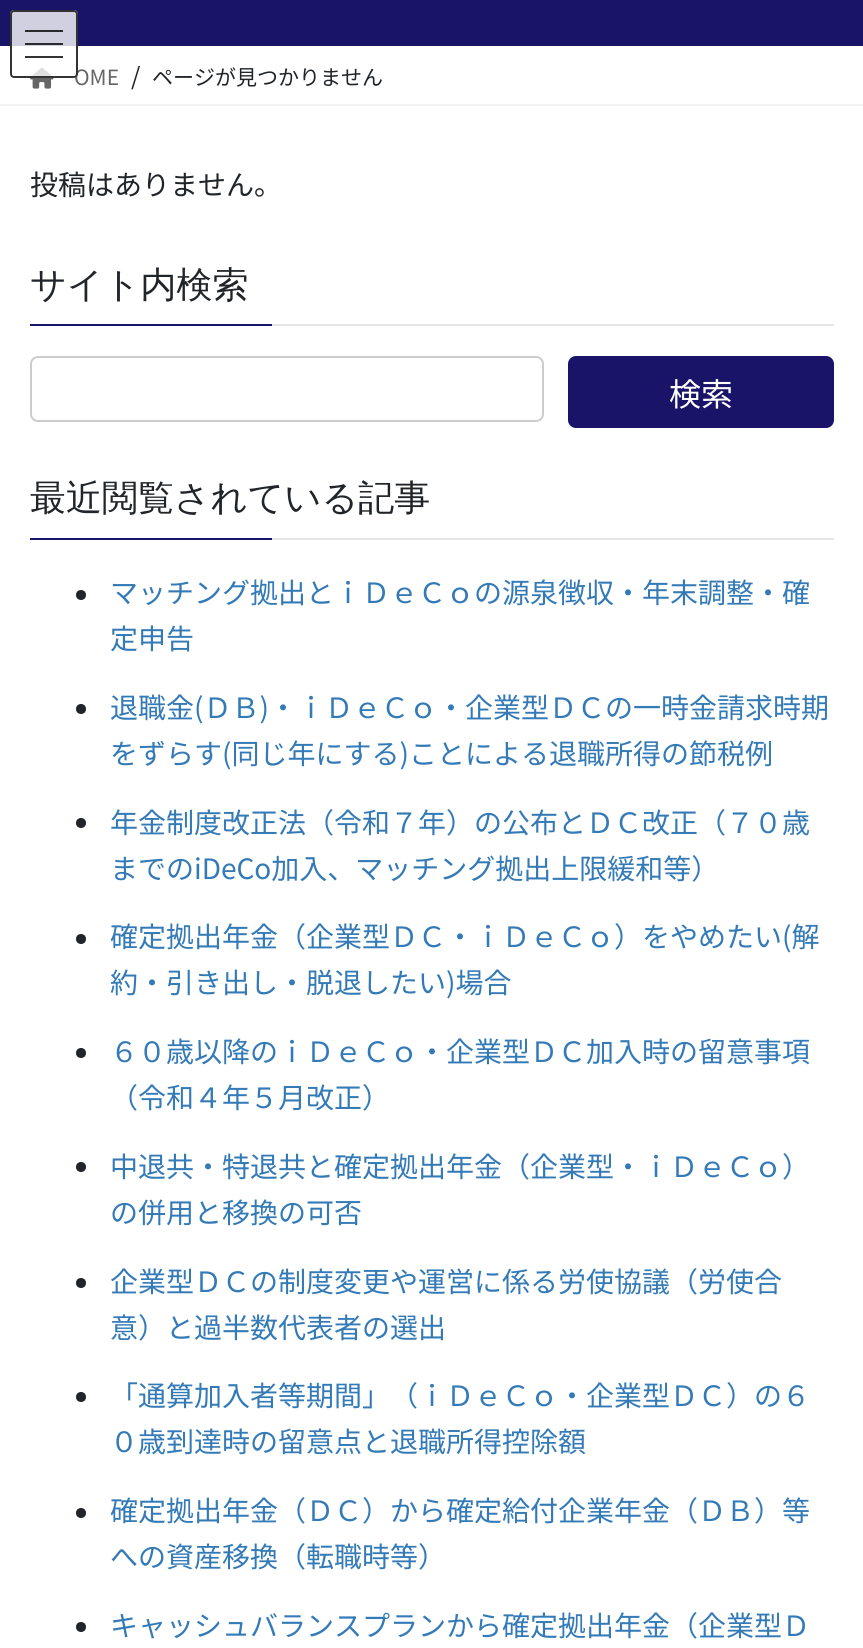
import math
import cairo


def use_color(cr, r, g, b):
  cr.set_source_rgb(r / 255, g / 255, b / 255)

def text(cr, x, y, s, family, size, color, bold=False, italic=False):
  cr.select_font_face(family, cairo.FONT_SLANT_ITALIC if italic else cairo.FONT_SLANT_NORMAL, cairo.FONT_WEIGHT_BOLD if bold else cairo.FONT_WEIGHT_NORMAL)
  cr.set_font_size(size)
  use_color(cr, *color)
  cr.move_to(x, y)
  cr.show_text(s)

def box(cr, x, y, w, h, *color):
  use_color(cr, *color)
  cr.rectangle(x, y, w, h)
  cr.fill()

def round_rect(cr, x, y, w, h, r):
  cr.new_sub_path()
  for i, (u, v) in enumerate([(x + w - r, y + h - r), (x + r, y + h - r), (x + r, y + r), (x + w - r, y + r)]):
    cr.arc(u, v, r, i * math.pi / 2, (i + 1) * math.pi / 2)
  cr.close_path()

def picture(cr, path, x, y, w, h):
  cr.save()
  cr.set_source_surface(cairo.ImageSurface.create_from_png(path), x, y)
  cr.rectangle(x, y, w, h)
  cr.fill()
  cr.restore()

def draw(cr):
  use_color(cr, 255, 255, 255)
  cr.paint()
  box(cr, 0, 0, 863, 46, 25, 20, 104)
  box(cr, 0, 104, 863, 2, 242, 242, 242)
  picture(cr, "img_01.png", 30, 67, 24, 22)
  box(cr, 272, 324, 562, 2, 230, 230, 230)
  box(cr, 30, 324, 242, 2, 25, 20, 104)
  round_rect(cr, 31, 357, 512, 64, 7)
  use_color(cr, 204, 204, 204)
  cr.stroke()
  use_color(cr, 25, 20, 104)
  round_rect(cr, 568, 356, 266, 72, 8)
  cr.fill()
  box(cr, 272, 538, 562, 2, 230, 230, 230)
  box(cr, 30, 538, 242, 2, 25, 20, 104)
  use_color(cr, 33, 37, 41)
  cr.arc(81, 595, 5, 0, 2 * math.pi)
  cr.fill()
  cr.arc(81, 709, 5, 0, 2 * math.pi)
  cr.fill()
  cr.arc(81, 823, 5, 0, 2 * math.pi)
  cr.fill()
  cr.arc(81, 939, 5, 0, 2 * math.pi)
  cr.fill()
  cr.arc(81, 1053, 5, 0, 2 * math.pi)
  cr.fill()
  cr.arc(81, 1167, 5, 0, 2 * math.pi)
  cr.fill()
  cr.arc(81, 1283, 5, 0, 2 * math.pi)
  cr.fill()
  cr.arc(81, 1397, 5, 0, 2 * math.pi)
  cr.fill()
  cr.arc(81, 1513, 5, 0, 2 * math.pi)
  cr.fill()
  cr.arc(81, 1627, 5, 0, 2 * math.pi)
  cr.fill()
  text(cr, 74, 85, "OME", "Noto Sans JP", 21, (102, 102, 102))
  cr.set_source_rgba(1, 1, 1, 0.8)
  round_rect(cr, 10, 10, 68, 68, 4)
  cr.fill()
  box(cr, 25, 56, 38, 2, 51, 51, 51)
  box(cr, 25, 43, 38, 2, 42, 42, 45)
  box(cr, 25, 30, 38, 2, 42, 42, 45)
  round_rect(cr, 11, 11, 66, 66, 3)
  use_color(cr, 51, 51, 51)
  cr.stroke()
  text(cr, 131, 85, "/", "Noto Sans JP", 24, (33, 37, 41))
  text(cr, 152, 85, "ページが見つかりません", "Noto Sans JP", 21, (33, 37, 41))
  text(cr, 30, 195, "投稿はありません。", "Noto Sans JP", 28, (33, 37, 41))
  text(cr, 30, 297, "サイト内検索", "WenQuanYi Zen Hei Medium", 36, (33, 37, 41))
  text(cr, 669, 406, "検索", "Noto Sans JP", 32, (255, 255, 255))
  text(cr, 30, 510, "最近閲覧されている記事", "WenQuanYi Zen Hei Medium", 36, (33, 37, 41))
  text(cr, 110, 603, "マッチング拠出とｉＤｅＣｏの源泉徴収・年末調整・確", "Noto Sans JP", 28, (51, 122, 183))
  text(cr, 110, 649, "定申告", "Noto Sans JP", 28, (51, 122, 183))
  text(cr, 110, 718, "退職金(ＤＢ)・ｉＤｅＣｏ・企業型ＤＣの一時金請求時期", "Noto Sans JP", 28, (51, 122, 183))
  text(cr, 110, 764, "をずらす(同じ年にする)ことによる退職所得の節税例", "Noto Sans JP", 28, (51, 122, 183))
  text(cr, 110, 833, "年金制度改正法（令和７年）の公布とＤＣ改正（７０歳", "Noto Sans JP", 28, (51, 122, 183))
  text(cr, 110, 879, "までのiDeCo加入、マッチング拠出上限緩和等）", "Noto Sans JP", 28, (51, 122, 183))
  text(cr, 110, 947, "確定拠出年金（企業型ＤＣ・ｉＤｅＣｏ）をやめたい(解", "Noto Sans JP", 28, (51, 122, 183))
  text(cr, 110, 993, "約・引き出し・脱退したい)場合", "Noto Sans JP", 28, (51, 122, 183))
  text(cr, 110, 1062, "６０歳以降のｉＤｅＣｏ・企業型ＤＣ加入時の留意事項", "Noto Sans JP", 28, (51, 122, 183))
  text(cr, 110, 1108, "（令和４年５月改正）", "Noto Sans JP", 28, (51, 122, 183))
  text(cr, 110, 1177, "中退共・特退共と確定拠出年金（企業型・ｉＤｅＣｏ）", "Noto Sans JP", 28, (51, 122, 183))
  text(cr, 110, 1223, "の併用と移換の可否", "Noto Sans JP", 28, (51, 122, 183))
  text(cr, 110, 1292, "企業型ＤＣの制度変更や運営に係る労使協議（労使合", "Noto Sans JP", 28, (51, 122, 183))
  text(cr, 110, 1338, "意）と過半数代表者の選出", "Noto Sans JP", 28, (51, 122, 183))
  text(cr, 110, 1406, "「通算加入者等期間」（ｉＤｅＣｏ・企業型ＤＣ）の６", "Noto Sans JP", 28, (51, 122, 183))
  text(cr, 110, 1452, "０歳到達時の留意点と退職所得控除額", "Noto Sans JP", 28, (51, 122, 183))
  text(cr, 110, 1521, "確定拠出年金（ＤＣ）から確定給付企業年金（ＤＢ）等", "Noto Sans JP", 28, (51, 122, 183))
  text(cr, 110, 1567, "への資産移換（転職時等）", "Noto Sans JP", 28, (51, 122, 183))
  text(cr, 110, 1636, "キャッシュバランスプランから確定拠出年金（企業型Ｄ", "Noto Sans JP", 28, (51, 122, 183))


surface = cairo.ImageSurface(cairo.FORMAT_RGB24, 863, 1648)
cr = cairo.Context(surface)
options = cairo.FontOptions()
options.set_hint_metrics(cairo.HINT_METRICS_OFF)
options.set_hint_style(cairo.HINT_STYLE_NONE)
cr.set_font_options(options)
cr.set_miter_limit(4)
draw(cr)
surface.write_to_png("out.png")
